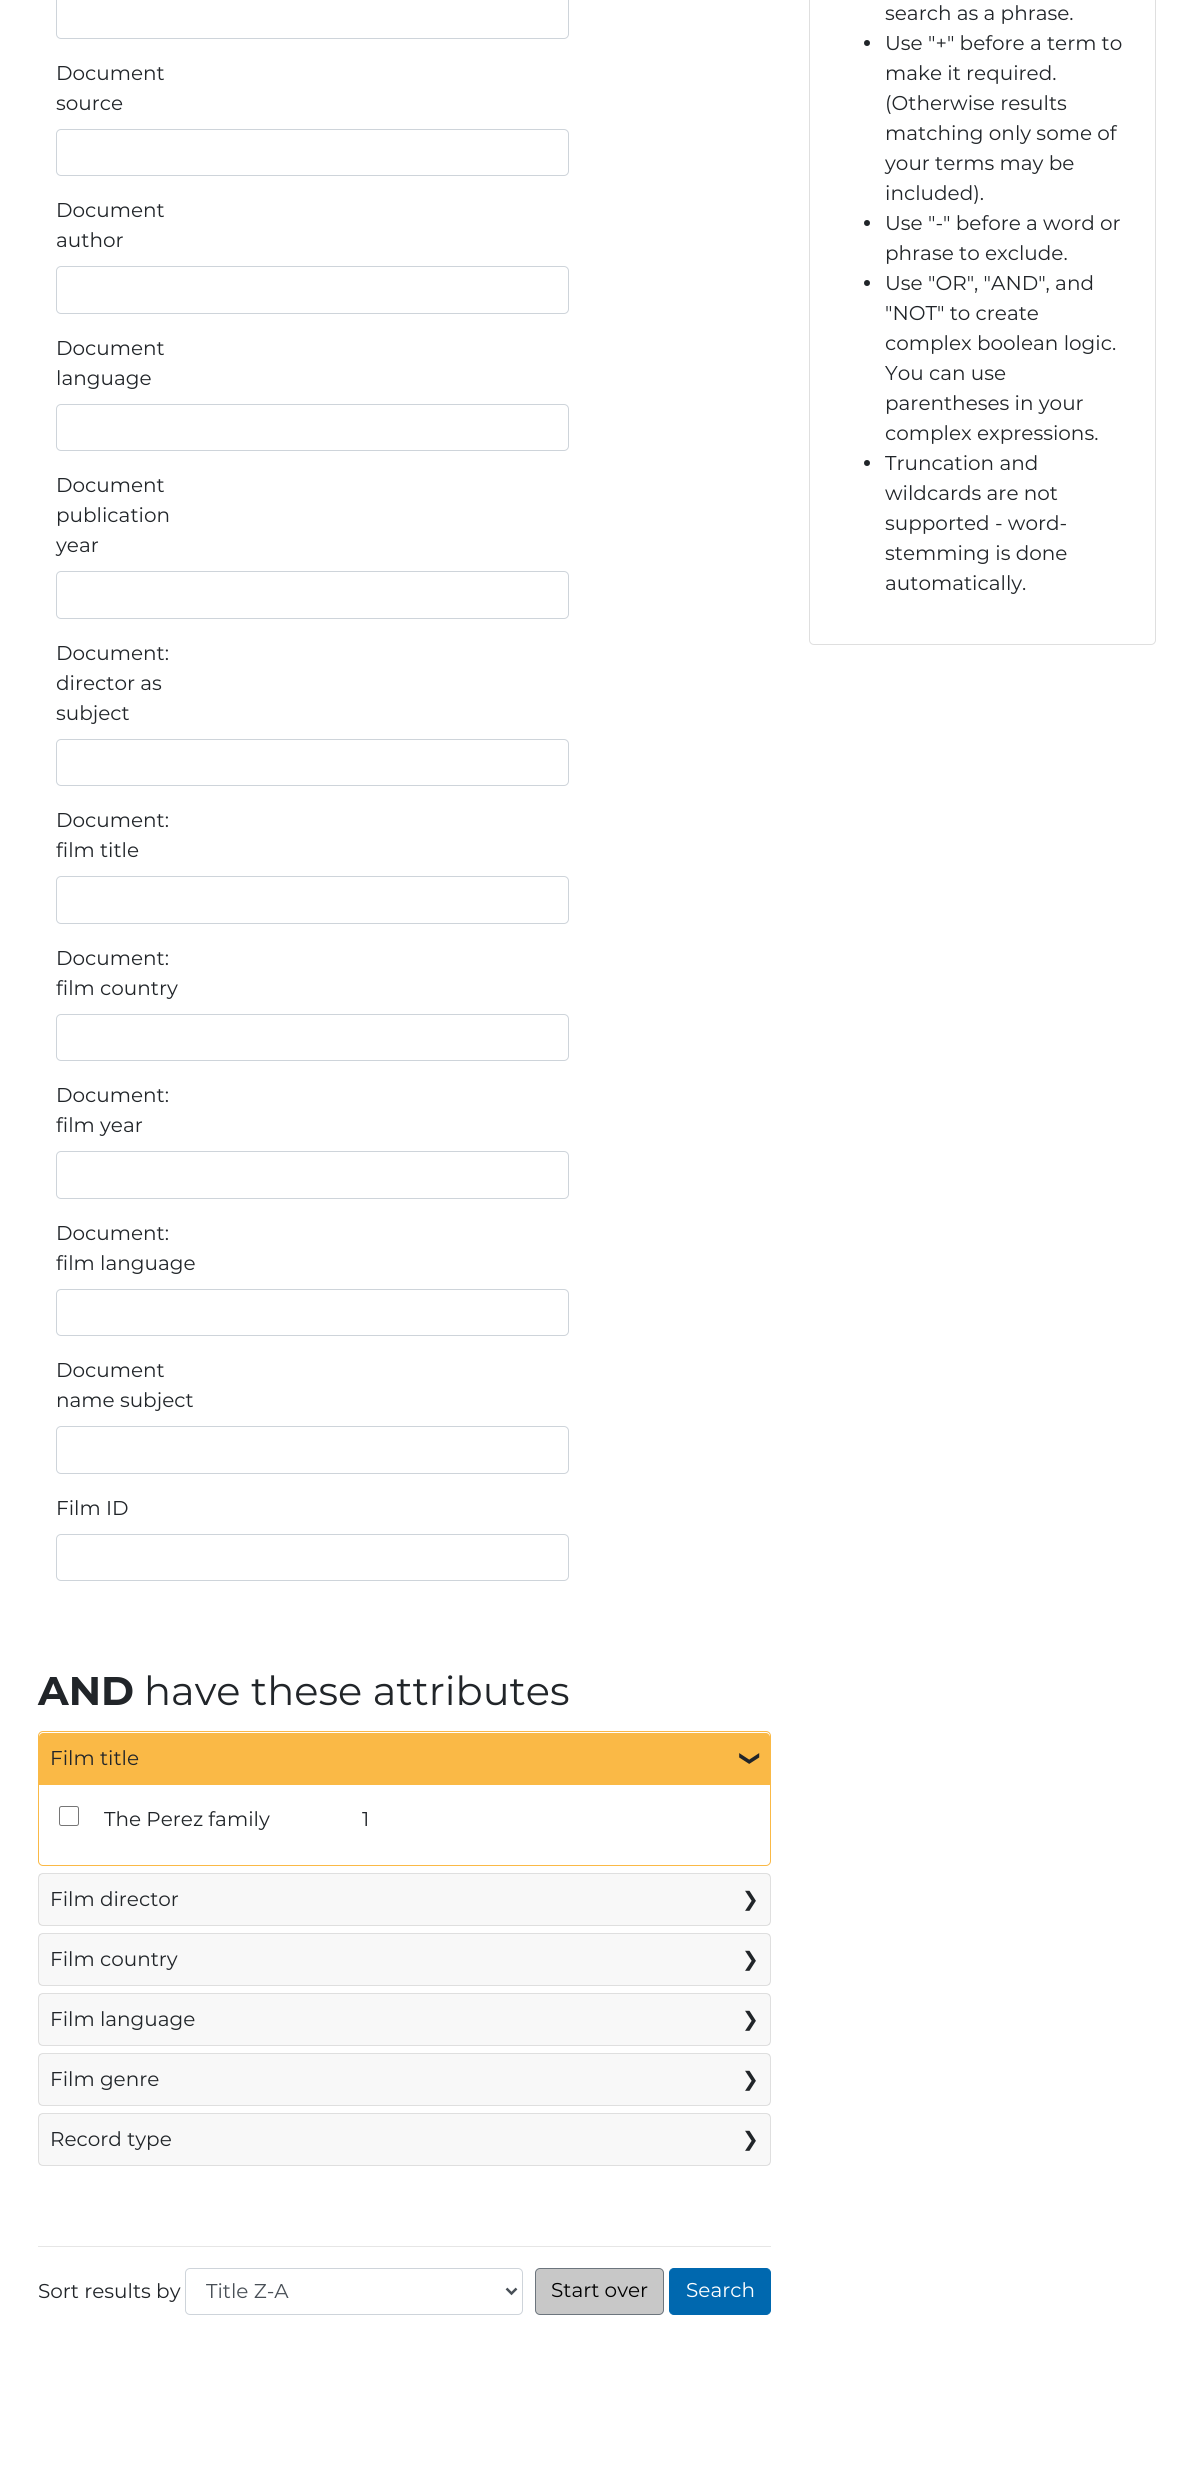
import math
import cairo


def use_color(cr, r, g, b):
  cr.set_source_rgb(r / 255, g / 255, b / 255)

def text(cr, x, y, s, family, size, color, bold=False, italic=False):
  cr.select_font_face(family, cairo.FONT_SLANT_ITALIC if italic else cairo.FONT_SLANT_NORMAL, cairo.FONT_WEIGHT_BOLD if bold else cairo.FONT_WEIGHT_NORMAL)
  cr.set_font_size(size)
  use_color(cr, *color)
  cr.move_to(x, y)
  cr.show_text(s)

def box(cr, x, y, w, h, *color):
  use_color(cr, *color)
  cr.rectangle(x, y, w, h)
  cr.fill()

def round_rect(cr, x, y, w, h, r):
  cr.new_sub_path()
  for i, (u, v) in enumerate([(x + w - r, y + h - r), (x + r, y + h - r), (x + r, y + r), (x + w - r, y + r)]):
    cr.arc(u, v, r, i * math.pi / 2, (i + 1) * math.pi / 2)
  cr.close_path()

def draw(cr):
  use_color(cr, 255, 255, 255)
  cr.paint()
  round_rect(cr, 56.5, -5.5, 512, 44, 4.5)
  use_color(cr, 206, 212, 218)
  cr.set_line_width(1)
  cr.stroke()
  round_rect(cr, 56.5, 129.5, 512, 46, 4.5)
  cr.stroke()
  round_rect(cr, 56.5, 266.5, 512, 47, 4.5)
  cr.stroke()
  round_rect(cr, 56.5, 404.5, 512, 46, 4.5)
  cr.stroke()
  round_rect(cr, 56.5, 571.5, 512, 47, 4.5)
  cr.stroke()
  round_rect(cr, 56.5, 739.5, 512, 46, 4.5)
  cr.stroke()
  round_rect(cr, 56.5, 876.5, 512, 47, 4.5)
  cr.stroke()
  round_rect(cr, 56.5, 1014.5, 512, 46, 4.5)
  cr.stroke()
  round_rect(cr, 56.5, 1151.5, 512, 47, 4.5)
  cr.stroke()
  round_rect(cr, 56.5, 1289.5, 512, 46, 4.5)
  cr.stroke()
  round_rect(cr, 56.5, 1426.5, 512, 47, 4.5)
  cr.stroke()
  round_rect(cr, 56.5, 1534.5, 512, 46, 4.5)
  cr.stroke()
  round_rect(cr, 38.5, 1731.5, 732, 134, 4.5)
  use_color(cr, 250, 185, 70)
  cr.stroke()
  cr.new_path()
  cr.move_to(43, 1733)
  cr.line_to(766, 1733)
  cr.curve_to(768, 1733, 770, 1735, 770, 1737)
  cr.line_to(770, 1785)
  cr.line_to(39, 1785)
  cr.line_to(39, 1737)
  cr.curve_to(39, 1735, 41, 1733, 43, 1733)
  cr.close_path()
  cr.fill()
  round_rect(cr, 59.5, 1806.5, 19, 19, 2)
  use_color(cr, 118, 118, 118)
  cr.stroke()
  round_rect(cr, 38.5, 1873.5, 732, 52, 4.5)
  use_color(cr, 223, 223, 223)
  cr.stroke()
  cr.set_source_rgba(0, 0, 0, 0.03)
  cr.rectangle(39, 1874, 731, 51)
  cr.fill()
  round_rect(cr, 38.5, 1933.5, 732, 52, 4.5)
  use_color(cr, 223, 223, 223)
  cr.stroke()
  cr.set_source_rgba(0, 0, 0, 0.03)
  cr.rectangle(39, 1934, 731, 51)
  cr.fill()
  round_rect(cr, 38.5, 1993.5, 732, 52, 4.5)
  use_color(cr, 223, 223, 223)
  cr.stroke()
  cr.set_source_rgba(0, 0, 0, 0.03)
  cr.rectangle(39, 1994, 731, 51)
  cr.fill()
  round_rect(cr, 38.5, 2053.5, 732, 52, 4.5)
  use_color(cr, 223, 223, 223)
  cr.stroke()
  cr.set_source_rgba(0, 0, 0, 0.03)
  cr.rectangle(39, 2054, 731, 51)
  cr.fill()
  round_rect(cr, 38.5, 2113.5, 732, 52, 4.5)
  use_color(cr, 223, 223, 223)
  cr.stroke()
  cr.set_source_rgba(0, 0, 0, 0.03)
  cr.rectangle(39, 2114, 731, 51)
  cr.fill()
  box(cr, 38, 2246, 733, 1, 230, 230, 230)
  round_rect(cr, 185.5, 2268.5, 337, 46, 4.5)
  use_color(cr, 206, 212, 218)
  cr.stroke()
  cr.new_path()
  cr.move_to(506.5, 2288.5)
  cr.line_to(511.5, 2293.5)
  cr.line_to(516.5, 2288.5)
  use_color(cr, 73, 80, 87)
  cr.set_line_width(2.5)
  cr.stroke()
  use_color(cr, 200, 200, 200)
  round_rect(cr, 535.5, 2268.5, 128, 46, 4.5)
  cr.fill_preserve()
  use_color(cr, 108, 117, 125)
  cr.set_line_width(1)
  cr.stroke()
  use_color(cr, 0, 104, 175)
  round_rect(cr, 669.5, 2268.5, 101, 46, 4.5)
  cr.fill_preserve()
  cr.stroke()
  round_rect(cr, 809.5, -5.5, 346, 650, 4.5)
  use_color(cr, 223, 223, 223)
  cr.stroke()
  use_color(cr, 33, 37, 41)
  cr.arc(867, 43, 3, 0, 2 * math.pi)
  cr.fill()
  cr.arc(867, 223, 3, 0, 2 * math.pi)
  cr.fill()
  cr.arc(867, 283, 3, 0, 2 * math.pi)
  cr.fill()
  cr.arc(867, 463, 3, 0, 2 * math.pi)
  cr.fill()
  text(cr, 56, 80, "Document", "Montserrat", 20, (33, 37, 41))
  text(cr, 56, 110, "source", "Montserrat", 20, (33, 37, 41))
  text(cr, 56, 217, "Document", "Montserrat", 20, (33, 37, 41))
  text(cr, 56, 247, "author", "Montserrat", 20, (33, 37, 41))
  text(cr, 56, 355, "Document", "Montserrat", 20, (33, 37, 41))
  text(cr, 56, 385, "language", "Montserrat", 20, (33, 37, 41))
  text(cr, 56, 492, "Document", "Montserrat", 20, (33, 37, 41))
  text(cr, 56, 522, "publication", "Montserrat", 20, (33, 37, 41))
  text(cr, 56, 552, "year", "Montserrat", 20, (33, 37, 41))
  text(cr, 56, 660, "Document:", "Montserrat", 20, (33, 37, 41))
  text(cr, 56, 690, "director as", "Montserrat", 20, (33, 37, 41))
  text(cr, 56, 720, "subject", "Montserrat", 20, (33, 37, 41))
  text(cr, 56, 827, "Document:", "Montserrat", 20, (33, 37, 41))
  text(cr, 56, 857, "film title", "Montserrat", 20, (33, 37, 41))
  text(cr, 56, 965, "Document:", "Montserrat", 20, (33, 37, 41))
  text(cr, 56, 995, "film country", "Montserrat", 20, (33, 37, 41))
  text(cr, 56, 1102, "Document:", "Montserrat", 20, (33, 37, 41))
  text(cr, 56, 1132, "film year", "Montserrat", 20, (33, 37, 41))
  text(cr, 56, 1240, "Document:", "Montserrat", 20, (33, 37, 41))
  text(cr, 56, 1270, "film language", "Montserrat", 20, (33, 37, 41))
  text(cr, 56, 1377, "Document", "Montserrat", 20, (33, 37, 41))
  text(cr, 56, 1407, "name subject", "Montserrat", 20, (33, 37, 41))
  text(cr, 56, 1515, "Film ID", "Montserrat", 20, (33, 37, 41))
  text(cr, 38, 1705, "AND", "Montserrat", 40, (33, 37, 41), bold=True)
  text(cr, 144, 1705, "have these attributes", "Montserrat", 40, (33, 37, 41))
  text(cr, 50, 1765, "Film title", "Montserrat", 20, (33, 37, 41))
  cr.save()
  cr.translate(744, 1750)
  cr.rotate(90 * math.pi / 180)
  text(cr, 0, 0, "❯", "DejaVu Sans", 20, (33, 37, 41))
  cr.restore()
  text(cr, 104, 1826, "The Perez family", "Montserrat", 20, (33, 37, 41))
  text(cr, 362, 1826, "1", "Montserrat", 20, (33, 37, 41))
  text(cr, 50, 1906, "Film director", "Montserrat", 20, (33, 37, 41))
  text(cr, 742, 1906, "❯", "DejaVu Sans", 20, (33, 37, 41))
  text(cr, 50, 1966, "Film country", "Montserrat", 20, (33, 37, 41))
  text(cr, 742, 1966, "❯", "DejaVu Sans", 20, (33, 37, 41))
  text(cr, 50, 2026, "Film language", "Montserrat", 20, (33, 37, 41))
  text(cr, 742, 2026, "❯", "DejaVu Sans", 20, (33, 37, 41))
  text(cr, 50, 2086, "Film genre", "Montserrat", 20, (33, 37, 41))
  text(cr, 742, 2086, "❯", "DejaVu Sans", 20, (33, 37, 41))
  text(cr, 50, 2146, "Record type", "Montserrat", 20, (33, 37, 41))
  text(cr, 742, 2146, "❯", "DejaVu Sans", 20, (33, 37, 41))
  text(cr, 38, 2298, "Sort results by", "Montserrat", 20, (33, 37, 41))
  text(cr, 206, 2298, "Title Z-A", "Montserrat", 20, (73, 80, 87))
  text(cr, 551, 2297, "Start over", "Montserrat", 20, (0, 0, 0))
  text(cr, 686, 2297, "Search", "Montserrat", 20, (255, 255, 255))
  text(cr, 885, 20, "search as a phrase.", "Montserrat", 20, (33, 37, 41))
  text(cr, 885, 50, "Use \"+\" before a term to", "Montserrat", 20, (33, 37, 41))
  text(cr, 885, 80, "make it required.", "Montserrat", 20, (33, 37, 41))
  text(cr, 885, 110, "(Otherwise results", "Montserrat", 20, (33, 37, 41))
  text(cr, 885, 140, "matching only some of", "Montserrat", 20, (33, 37, 41))
  text(cr, 885, 170, "your terms may be", "Montserrat", 20, (33, 37, 41))
  text(cr, 885, 200, "included).", "Montserrat", 20, (33, 37, 41))
  text(cr, 885, 230, "Use \"-\" before a word or", "Montserrat", 20, (33, 37, 41))
  text(cr, 885, 260, "phrase to exclude.", "Montserrat", 20, (33, 37, 41))
  text(cr, 885, 290, "Use \"OR\", \"AND\", and", "Montserrat", 20, (33, 37, 41))
  text(cr, 885, 320, "\"NOT\" to create", "Montserrat", 20, (33, 37, 41))
  text(cr, 885, 350, "complex boolean logic.", "Montserrat", 20, (33, 37, 41))
  text(cr, 885, 380, "You can use", "Montserrat", 20, (33, 37, 41))
  text(cr, 885, 410, "parentheses in your", "Montserrat", 20, (33, 37, 41))
  text(cr, 885, 440, "complex expressions.", "Montserrat", 20, (33, 37, 41))
  text(cr, 885, 470, "Truncation and", "Montserrat", 20, (33, 37, 41))
  text(cr, 885, 500, "wildcards are not", "Montserrat", 20, (33, 37, 41))
  text(cr, 885, 530, "supported - word-", "Montserrat", 20, (33, 37, 41))
  text(cr, 885, 560, "stemming is done", "Montserrat", 20, (33, 37, 41))
  text(cr, 885, 590, "automatically.", "Montserrat", 20, (33, 37, 41))


surface = cairo.ImageSurface(cairo.FORMAT_RGB24, 1193, 2482)
cr = cairo.Context(surface)
options = cairo.FontOptions()
options.set_hint_metrics(cairo.HINT_METRICS_OFF)
options.set_hint_style(cairo.HINT_STYLE_NONE)
cr.set_font_options(options)
cr.set_miter_limit(4)
draw(cr)
surface.write_to_png("out.png")
